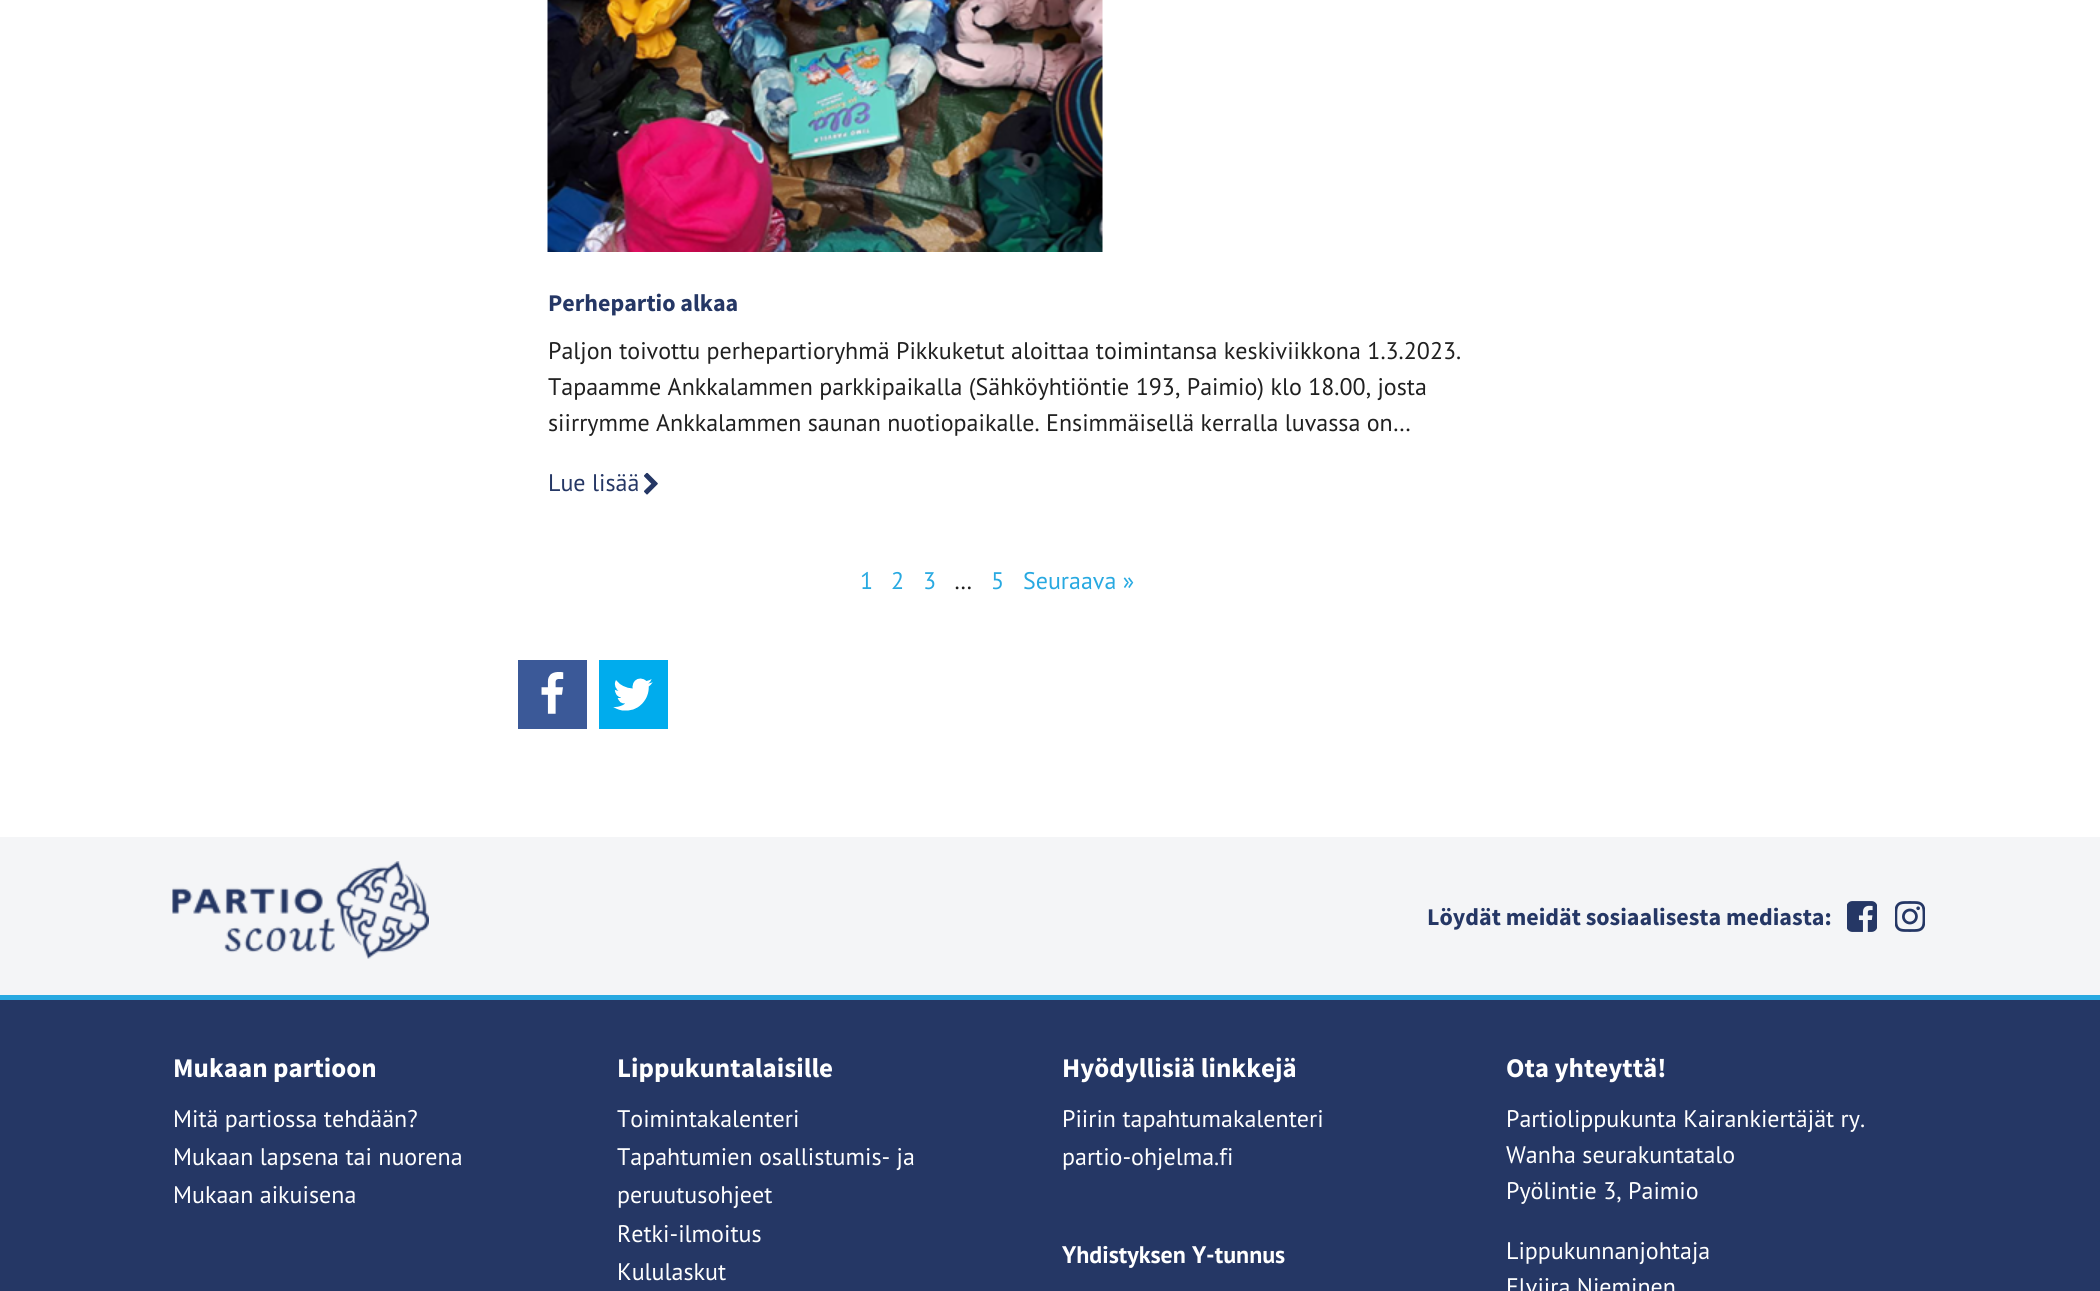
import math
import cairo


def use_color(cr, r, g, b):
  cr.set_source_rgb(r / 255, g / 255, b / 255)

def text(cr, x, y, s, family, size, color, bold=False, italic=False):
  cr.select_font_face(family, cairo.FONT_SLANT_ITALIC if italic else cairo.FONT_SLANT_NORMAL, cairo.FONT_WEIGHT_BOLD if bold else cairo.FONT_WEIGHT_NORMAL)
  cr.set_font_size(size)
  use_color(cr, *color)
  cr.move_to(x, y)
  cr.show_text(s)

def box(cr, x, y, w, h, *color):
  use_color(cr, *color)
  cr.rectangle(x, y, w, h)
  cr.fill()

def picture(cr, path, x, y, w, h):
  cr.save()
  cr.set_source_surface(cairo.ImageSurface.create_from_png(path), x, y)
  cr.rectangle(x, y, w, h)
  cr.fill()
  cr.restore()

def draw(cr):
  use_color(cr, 255, 255, 255)
  cr.paint()
  picture(cr, "img_01.png", 547, 0, 556, 252)
  picture(cr, "img_02.png", 644, 472, 14, 23)
  box(cr, 518, 660, 69, 69, 59, 89, 152)
  picture(cr, "img_03.png", 541, 672, 23, 42)
  box(cr, 599, 660, 69, 69, 0, 172, 237)
  picture(cr, "img_04.png", 613, 678, 40, 33)
  box(cr, 0, 837, 2100, 158, 244, 245, 247)
  picture(cr, "img_05.png", 172, 861, 257, 98)
  picture(cr, "img_06.png", 1847, 901, 30, 31)
  picture(cr, "img_07.png", 1895, 901, 30, 31)
  box(cr, 0, 1000, 2100, 291, 37, 55, 101)
  box(cr, 0, 995, 2100, 5, 40, 169, 225)
  text(cr, 548, 311, "Perhepartio alkaa", "Source Sans Pro", 24, (37, 55, 101), bold=True)
  text(cr, 548, 359, "Paljon toivottu perhepartioryhmä Pikkuketut aloittaa toimintansa keskiviikkona 1.3.2023.", "PT Sans", 24, (32, 32, 32))
  text(cr, 548, 395, "Tapaamme Ankkalammen parkkipaikalla (Sähköyhtiöntie 193, Paimio) klo 18.00, josta", "PT Sans", 24, (32, 32, 32))
  text(cr, 548, 431, "siirrymme Ankkalammen saunan nuotiopaikalle. Ensimmäisellä kerralla luvassa on…", "PT Sans", 24, (32, 32, 32))
  text(cr, 548, 491, "Lue lisää", "PT Sans", 24, (37, 55, 101))
  text(cr, 860, 589, "1", "PT Sans", 24, (40, 169, 225))
  text(cr, 891, 589, "2", "PT Sans", 24, (40, 169, 225))
  text(cr, 923, 589, "3", "PT Sans", 24, (40, 169, 225))
  text(cr, 954, 589, "…", "PT Sans", 24, (32, 32, 32))
  text(cr, 991, 589, "5", "PT Sans", 24, (40, 169, 225))
  text(cr, 1023, 589, "Seuraava »", "PT Sans", 24, (40, 169, 225))
  text(cr, 1427, 925, "Löydät meidät sosiaalisesta mediasta:", "Source Sans Pro", 24, (37, 55, 101), bold=True)
  text(cr, 173, 1077, "Mukaan partioon", "Source Sans Pro", 27, (255, 255, 255), bold=True)
  text(cr, 173, 1127, "Mitä partiossa tehdään?", "PT Sans", 24, (255, 255, 255))
  text(cr, 173, 1165, "Mukaan lapsena tai nuorena", "PT Sans", 24, (255, 255, 255))
  text(cr, 173, 1203, "Mukaan aikuisena", "PT Sans", 24, (255, 255, 255))
  text(cr, 617, 1077, "Lippukuntalaisille", "Source Sans Pro", 27, (255, 255, 255), bold=True)
  text(cr, 617, 1127, "Toimintakalenteri", "PT Sans", 24, (255, 255, 255))
  text(cr, 617, 1165, "Tapahtumien osallistumis- ja", "PT Sans", 24, (255, 255, 255))
  text(cr, 617, 1203, "peruutusohjeet", "PT Sans", 24, (255, 255, 255))
  text(cr, 617, 1242, "Retki-ilmoitus", "PT Sans", 24, (255, 255, 255))
  text(cr, 617, 1280, "Kululaskut", "PT Sans", 24, (255, 255, 255))
  text(cr, 1062, 1077, "Hyödyllisiä linkkejä", "Source Sans Pro", 27, (255, 255, 255), bold=True)
  text(cr, 1062, 1127, "Piirin tapahtumakalenteri", "PT Sans", 24, (255, 255, 255))
  text(cr, 1062, 1165, "partio-ohjelma.fi", "PT Sans", 24, (255, 255, 255))
  text(cr, 1062, 1263, "Yhdistyksen Y-tunnus", "PT Sans", 24, (255, 255, 255), bold=True)
  text(cr, 1506, 1077, "Ota yhteyttä!", "Source Sans Pro", 27, (255, 255, 255), bold=True)
  text(cr, 1506, 1127, "Partiolippukunta Kairankiertäjät ry.", "PT Sans", 24, (255, 255, 255))
  text(cr, 1506, 1163, "Wanha seurakuntatalo", "PT Sans", 24, (255, 255, 255))
  text(cr, 1506, 1199, "Pyölintie 3, Paimio", "PT Sans", 24, (255, 255, 255))
  text(cr, 1506, 1259, "Lippukunnanjohtaja", "PT Sans", 24, (255, 255, 255))
  text(cr, 1506, 1295, "Elviira Nieminen", "PT Sans", 24, (255, 255, 255))


surface = cairo.ImageSurface(cairo.FORMAT_RGB24, 2100, 1291)
cr = cairo.Context(surface)
options = cairo.FontOptions()
options.set_hint_metrics(cairo.HINT_METRICS_OFF)
options.set_hint_style(cairo.HINT_STYLE_NONE)
cr.set_font_options(options)
cr.set_miter_limit(4)
draw(cr)
surface.write_to_png("out.png")
